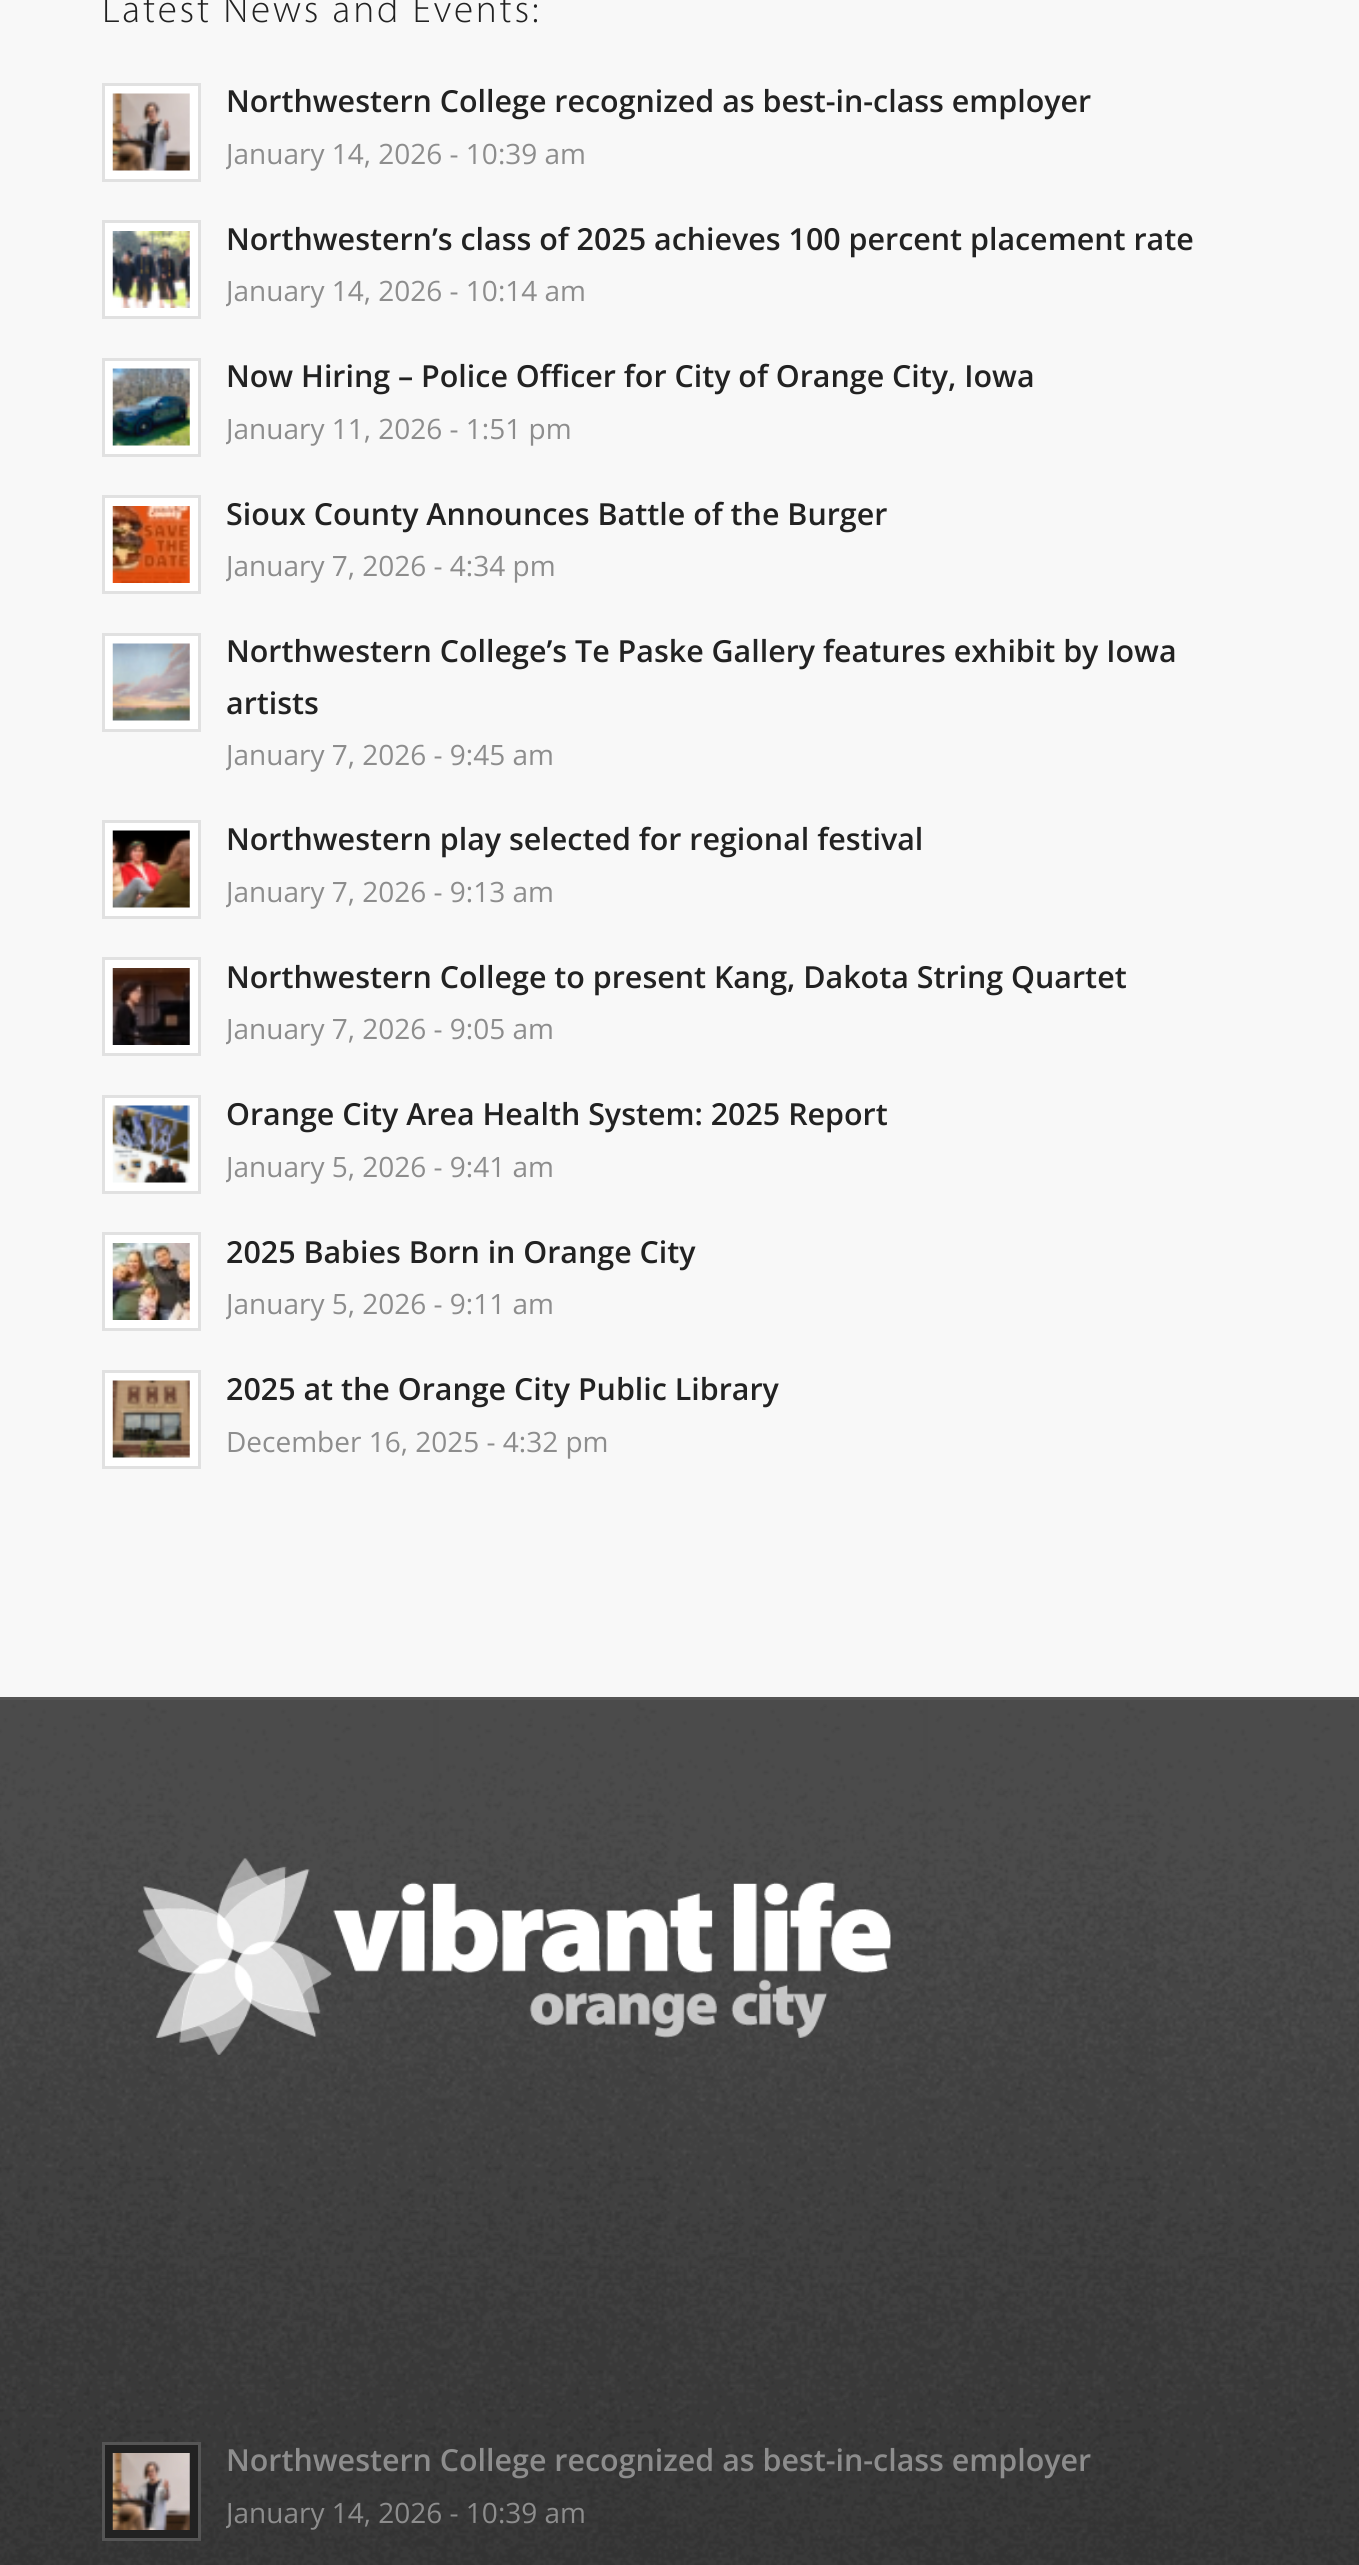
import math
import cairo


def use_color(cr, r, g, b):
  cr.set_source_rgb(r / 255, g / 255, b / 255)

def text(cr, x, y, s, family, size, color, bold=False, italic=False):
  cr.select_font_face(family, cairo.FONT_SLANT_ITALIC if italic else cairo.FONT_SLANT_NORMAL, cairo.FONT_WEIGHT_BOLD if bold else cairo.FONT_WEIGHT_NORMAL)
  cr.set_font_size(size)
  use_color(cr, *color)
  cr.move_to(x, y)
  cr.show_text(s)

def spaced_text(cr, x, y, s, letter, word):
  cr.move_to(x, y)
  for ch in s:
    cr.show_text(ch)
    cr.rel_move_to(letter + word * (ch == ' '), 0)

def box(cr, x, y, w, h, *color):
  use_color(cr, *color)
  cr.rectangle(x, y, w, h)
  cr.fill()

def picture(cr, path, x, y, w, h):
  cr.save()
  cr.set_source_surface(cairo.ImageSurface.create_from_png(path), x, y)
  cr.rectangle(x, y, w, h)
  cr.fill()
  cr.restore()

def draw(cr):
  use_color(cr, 248, 248, 248)
  cr.paint()
  use_color(cr, 255, 255, 255)
  cr.rectangle(103.5, 84.5, 96, 96)
  cr.fill_preserve()
  use_color(cr, 225, 225, 225)
  cr.set_line_width(3)
  cr.stroke()
  picture(cr, "img_01.png", 112, 93, 78, 78)
  use_color(cr, 255, 255, 255)
  cr.rectangle(103.5, 221.5, 96, 96)
  cr.fill_preserve()
  use_color(cr, 225, 225, 225)
  cr.stroke()
  picture(cr, "img_02.png", 112, 231, 78, 77)
  use_color(cr, 255, 255, 255)
  cr.rectangle(103.5, 359.5, 96, 96)
  cr.fill_preserve()
  use_color(cr, 225, 225, 225)
  cr.stroke()
  picture(cr, "img_03.png", 112, 368, 78, 78)
  use_color(cr, 255, 255, 255)
  cr.rectangle(103.5, 496.5, 96, 96)
  cr.fill_preserve()
  use_color(cr, 225, 225, 225)
  cr.stroke()
  picture(cr, "img_04.png", 112, 506, 78, 77)
  use_color(cr, 255, 255, 255)
  cr.rectangle(103.5, 634.5, 96, 96)
  cr.fill_preserve()
  use_color(cr, 225, 225, 225)
  cr.stroke()
  picture(cr, "img_05.png", 112, 643, 78, 78)
  use_color(cr, 255, 255, 255)
  cr.rectangle(103.5, 821.5, 96, 96)
  cr.fill_preserve()
  use_color(cr, 225, 225, 225)
  cr.stroke()
  picture(cr, "img_06.png", 112, 830, 78, 78)
  use_color(cr, 255, 255, 255)
  cr.rectangle(103.5, 958.5, 96, 96)
  cr.fill_preserve()
  use_color(cr, 225, 225, 225)
  cr.stroke()
  picture(cr, "img_07.png", 112, 968, 78, 77)
  use_color(cr, 255, 255, 255)
  cr.rectangle(103.5, 1096.5, 96, 96)
  cr.fill_preserve()
  use_color(cr, 225, 225, 225)
  cr.stroke()
  picture(cr, "img_08.png", 112, 1105, 78, 78)
  use_color(cr, 255, 255, 255)
  cr.rectangle(103.5, 1233.5, 96, 96)
  cr.fill_preserve()
  use_color(cr, 225, 225, 225)
  cr.stroke()
  picture(cr, "img_09.png", 112, 1243, 78, 77)
  use_color(cr, 255, 255, 255)
  cr.rectangle(103.5, 1371.5, 96, 96)
  cr.fill_preserve()
  use_color(cr, 225, 225, 225)
  cr.stroke()
  picture(cr, "img_10.png", 112, 1380, 78, 78)
  box(cr, 0, 1700, 1359, 865, 51, 51, 51)
  picture(cr, "img_11.png", 0, 1700, 1359, 865)
  box(cr, 0, 1697, 1359, 3, 85, 85, 85)
  picture(cr, "img_12.png", 138, 1858, 753, 197)
  use_color(cr, 34, 34, 34)
  cr.rectangle(103.5, 2443.5, 96, 96)
  cr.fill_preserve()
  use_color(cr, 85, 85, 85)
  cr.stroke()
  picture(cr, "img_13.png", 112, 2453, 78, 77)
  cr.select_font_face("Myriad Light")
  cr.set_font_size(39.25)
  use_color(cr, 34, 34, 34)
  spaced_text(cr, 102, 22, "Latest News and Events:", 2.75, 0)
  text(cr, 226, 112, "Northwestern College recognized as best-in-class employer", "Open Sans SemiBold", 30.4, (34, 34, 34))
  cr.save()
  cr.rectangle(226, 77, 1034, 102)
  cr.clip()
  text(cr, 226, 164, "January 14, 2026 - 10:39 am", "Open Sans", 28, (141, 141, 141))
  cr.restore()
  text(cr, 226, 250, "Northwestern’s class of 2025 achieves 100 percent placement rate", "Open Sans SemiBold", 30.4, (34, 34, 34))
  cr.save()
  cr.rectangle(226, 215, 1034, 101)
  cr.clip()
  text(cr, 226, 301, "January 14, 2026 - 10:14 am", "Open Sans", 28, (141, 141, 141))
  cr.restore()
  text(cr, 226, 387, "Now Hiring – Police Officer for City of Orange City, Iowa", "Open Sans SemiBold", 30.4, (34, 34, 34))
  cr.save()
  cr.rectangle(226, 352, 1034, 102)
  cr.clip()
  text(cr, 226, 439, "January 11, 2026 - 1:51 pm", "Open Sans", 28, (141, 141, 141))
  cr.restore()
  text(cr, 226, 525, "Sioux County Announces Battle of the Burger", "Open Sans SemiBold", 30.4, (34, 34, 34))
  cr.save()
  cr.rectangle(226, 490, 1034, 101)
  cr.clip()
  text(cr, 226, 576, "January 7, 2026 - 4:34 pm", "Open Sans", 28, (141, 141, 141))
  cr.restore()
  text(cr, 226, 662, "Northwestern College’s Te Paske Gallery features exhibit by Iowa", "Open Sans SemiBold", 30.4, (34, 34, 34))
  text(cr, 226, 714, "artists", "Open Sans SemiBold", 30.4, (34, 34, 34))
  cr.save()
  cr.rectangle(226, 627, 1034, 154)
  cr.clip()
  text(cr, 226, 765, "January 7, 2026 - 9:45 am", "Open Sans", 28, (141, 141, 141))
  cr.restore()
  text(cr, 226, 850, "Northwestern play selected for regional festival", "Open Sans SemiBold", 30.4, (34, 34, 34))
  cr.save()
  cr.rectangle(226, 814, 1034, 105)
  cr.clip()
  text(cr, 226, 902, "January 7, 2026 - 9:13 am", "Open Sans", 28, (141, 141, 141))
  cr.restore()
  text(cr, 226, 988, "Northwestern College to present Kang, Dakota String Quartet", "Open Sans SemiBold", 30.4, (34, 34, 34))
  cr.save()
  cr.rectangle(226, 952, 1034, 104)
  cr.clip()
  text(cr, 226, 1039, "January 7, 2026 - 9:05 am", "Open Sans", 28, (141, 141, 141))
  cr.restore()
  text(cr, 226, 1125, "Orange City Area Health System: 2025 Report", "Open Sans SemiBold", 30.4, (34, 34, 34))
  cr.save()
  cr.rectangle(226, 1089, 1034, 105)
  cr.clip()
  text(cr, 226, 1177, "January 5, 2026 - 9:41 am", "Open Sans", 28, (141, 141, 141))
  cr.restore()
  text(cr, 226, 1263, "2025 Babies Born in Orange City", "Open Sans SemiBold", 30.4, (34, 34, 34))
  cr.save()
  cr.rectangle(226, 1227, 1034, 104)
  cr.clip()
  text(cr, 226, 1314, "January 5, 2026 - 9:11 am", "Open Sans", 28, (141, 141, 141))
  cr.restore()
  text(cr, 226, 1400, "2025 at the Orange City Public Library", "Open Sans SemiBold", 30.4, (34, 34, 34))
  text(cr, 226, 1452, "December 16, 2025 - 4:32 pm", "Open Sans", 28, (141, 141, 141))
  text(cr, 226, 2471, "Northwestern College recognized as best-in-class employer", "Open Sans SemiBold", 30.4, (141, 141, 141))
  cr.save()
  cr.rectangle(226, 2437, 1034, 101)
  cr.clip()
  text(cr, 226, 2523, "January 14, 2026 - 10:39 am", "Open Sans", 28, (141, 141, 141))
  cr.restore()


surface = cairo.ImageSurface(cairo.FORMAT_RGB24, 1359, 2565)
cr = cairo.Context(surface)
options = cairo.FontOptions()
options.set_hint_metrics(cairo.HINT_METRICS_OFF)
options.set_hint_style(cairo.HINT_STYLE_NONE)
cr.set_font_options(options)
cr.set_miter_limit(4)
draw(cr)
surface.write_to_png("out.png")
